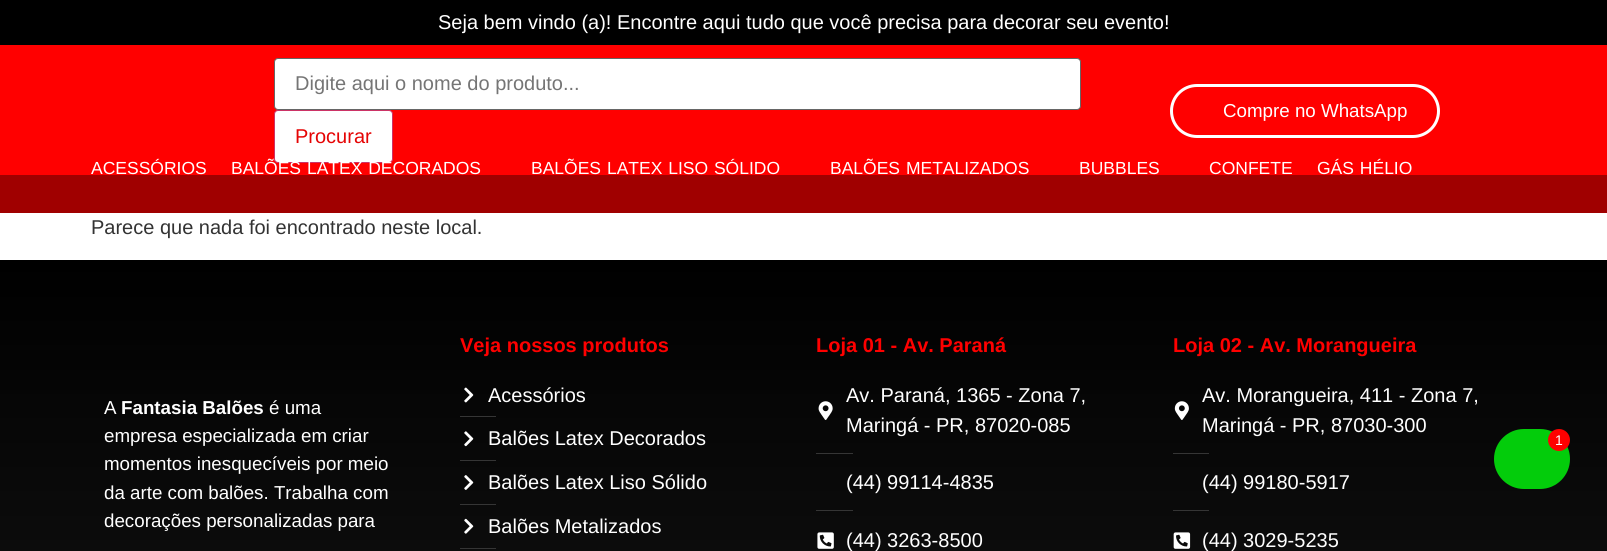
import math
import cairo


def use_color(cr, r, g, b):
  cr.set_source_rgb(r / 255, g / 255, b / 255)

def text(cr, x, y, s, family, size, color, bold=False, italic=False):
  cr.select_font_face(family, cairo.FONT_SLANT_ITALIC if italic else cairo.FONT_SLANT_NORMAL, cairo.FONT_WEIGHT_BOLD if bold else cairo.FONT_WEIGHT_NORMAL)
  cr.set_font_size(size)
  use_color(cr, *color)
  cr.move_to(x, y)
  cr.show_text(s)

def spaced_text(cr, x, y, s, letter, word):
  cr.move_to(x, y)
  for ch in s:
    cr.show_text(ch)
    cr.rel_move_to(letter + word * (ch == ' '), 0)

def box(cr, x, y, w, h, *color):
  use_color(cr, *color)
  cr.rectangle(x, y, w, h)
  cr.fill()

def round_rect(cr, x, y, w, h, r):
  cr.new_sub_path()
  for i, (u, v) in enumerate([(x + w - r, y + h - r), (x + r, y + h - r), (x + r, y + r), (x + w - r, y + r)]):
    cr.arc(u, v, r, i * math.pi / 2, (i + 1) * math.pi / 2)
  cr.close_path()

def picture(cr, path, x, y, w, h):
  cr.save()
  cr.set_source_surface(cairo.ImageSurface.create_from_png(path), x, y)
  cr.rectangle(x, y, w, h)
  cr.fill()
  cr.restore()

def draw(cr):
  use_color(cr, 255, 255, 255)
  cr.paint()
  box(cr, 0, 0, 1607, 45, 0, 0, 0)
  box(cr, 0, 45, 1607, 130, 255, 0, 0)
  use_color(cr, 255, 255, 255)
  round_rect(cr, 274.5, 58.5, 806, 51, 3.5)
  cr.fill_preserve()
  use_color(cr, 102, 102, 102)
  cr.set_line_width(1)
  cr.stroke()
  use_color(cr, 255, 255, 255)
  round_rect(cr, 274.5, 110.5, 118, 52, 3.5)
  cr.fill_preserve()
  use_color(cr, 204, 51, 102)
  cr.stroke()
  round_rect(cr, 1171.5, 85.5, 267, 51, 25.5)
  use_color(cr, 255, 255, 255)
  cr.set_line_width(3)
  cr.stroke()
  box(cr, 0, 175, 1607, 38, 160, 0, 0)
  gradient = cairo.LinearGradient(804, 260, 804, 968)
  gradient.add_color_stop_rgba(0, 0, 0, 0, 1)
  gradient.add_color_stop_rgba(1, 0.114, 0.114, 0.114, 1)
  cr.set_source(gradient)
  cr.rectangle(0, 260, 1607, 291)
  cr.fill()
  picture(cr, "img_01.png", 464, 387, 10, 16)
  box(cr, 460, 416, 36, 1, 53, 53, 53)
  picture(cr, "img_02.png", 464, 431, 10, 16)
  box(cr, 460, 460, 36, 1, 53, 53, 53)
  picture(cr, "img_03.png", 464, 475, 10, 15)
  box(cr, 460, 504, 36, 1, 53, 53, 53)
  picture(cr, "img_04.png", 464, 518, 10, 16)
  box(cr, 460, 548, 36, 1, 53, 53, 53)
  picture(cr, "img_05.png", 818, 401, 15, 19)
  box(cr, 816, 453, 37, 1, 53, 53, 53)
  box(cr, 816, 510, 37, 1, 53, 53, 53)
  picture(cr, "img_06.png", 817, 532, 17, 17)
  picture(cr, "img_07.png", 1174, 401, 15, 19)
  box(cr, 1173, 453, 36, 1, 53, 53, 53)
  box(cr, 1173, 510, 36, 1, 53, 53, 53)
  picture(cr, "img_08.png", 1173, 532, 18, 17)
  use_color(cr, 3, 204, 11)
  round_rect(cr, 1494, 429, 76, 60, 30)
  cr.fill()
  use_color(cr, 255, 0, 0)
  cr.arc(1559, 440, 11, 0, 2 * math.pi)
  cr.fill()
  text(cr, 438, 29, "Seja bem vindo (a)! Encontre aqui tudo que você precisa para decorar seu evento!", "Liberation Sans", 20, (255, 255, 255))
  text(cr, 295, 90, "Digite aqui o nome do produto...", "Liberation Sans", 20, (117, 117, 117))
  text(cr, 295, 143, "Procurar", "Liberation Sans", 20, (229, 4, 4))
  text(cr, 1223, 117, "Compre no WhatsApp", "Liberation Sans", 18.75, (255, 255, 255))
  text(cr, 91, 174, "ACESSÓRIOS", "Liberation Sans", 17.5, (255, 255, 255))
  spaced_text(cr, 231, 174, "BALÕES LATEX DECORADOS", 0, 1)
  spaced_text(cr, 531, 174, "BALÕES LATEX LISO SÓLIDO", 0, 1)
  spaced_text(cr, 830, 174, "BALÕES METALIZADOS", 0, 1)
  text(cr, 1079, 174, "BUBBLES", "Liberation Sans", 17.5, (255, 255, 255))
  text(cr, 1209, 174, "CONFETE", "Liberation Sans", 17.5, (255, 255, 255))
  spaced_text(cr, 1317, 174, "GÁS HÉLIO", 0, 1)
  text(cr, 91, 234, "Parece que nada foi encontrado neste local.", "Liberation Sans", 20, (51, 51, 51))
  text(cr, 104, 414, "A", "Liberation Sans", 18.75, (255, 255, 255))
  text(cr, 121, 414, "Fantasia Balões", "Liberation Sans", 18.75, (255, 255, 255), bold=True)
  text(cr, 269, 414, "é uma", "Liberation Sans", 18.75, (255, 255, 255))
  text(cr, 104, 442, "empresa especializada em criar", "Liberation Sans", 18.75, (255, 255, 255))
  text(cr, 104, 470, "momentos inesquecíveis por meio", "Liberation Sans", 18.75, (255, 255, 255))
  text(cr, 104, 499, "da arte com balões. Trabalha com", "Liberation Sans", 18.75, (255, 255, 255))
  text(cr, 104, 527, "decorações personalizadas para", "Liberation Sans", 18.75, (255, 255, 255))
  text(cr, 460, 352, "Veja nossos produtos", "Liberation Sans", 20, (255, 0, 0), bold=True)
  text(cr, 488, 402, "Acessórios", "Liberation Sans", 20, (255, 255, 255))
  text(cr, 488, 445, "Balões Latex Decorados", "Liberation Sans", 20, (255, 255, 255))
  text(cr, 488, 489, "Balões Latex Liso Sólido", "Liberation Sans", 20, (255, 255, 255))
  text(cr, 488, 533, "Balões Metalizados", "Liberation Sans", 20, (255, 255, 255))
  text(cr, 816, 352, "Loja 01 - Av. Paraná", "Liberation Sans", 20, (255, 0, 0), bold=True)
  text(cr, 846, 402, "Av. Paraná, 1365 - Zona 7,", "Liberation Sans", 20, (255, 255, 255))
  text(cr, 846, 432, "Maringá - PR, 87020-085", "Liberation Sans", 20, (255, 255, 255))
  text(cr, 846, 489, "(44) 99114-4835", "Liberation Sans", 20, (255, 255, 255))
  text(cr, 846, 547, "(44) 3263-8500", "Liberation Sans", 20, (255, 255, 255))
  text(cr, 1173, 352, "Loja 02 - Av. Morangueira", "Liberation Sans", 20, (255, 0, 0), bold=True)
  text(cr, 1202, 402, "Av. Morangueira, 411 - Zona 7,", "Liberation Sans", 20, (255, 255, 255))
  text(cr, 1202, 432, "Maringá - PR, 87030-300", "Liberation Sans", 20, (255, 255, 255))
  text(cr, 1202, 489, "(44) 99180-5917", "Liberation Sans", 20, (255, 255, 255))
  text(cr, 1202, 547, "(44) 3029-5235", "Liberation Sans", 20, (255, 255, 255))
  text(cr, 1555, 445, "1", "Liberation Sans", 14, (255, 255, 255))


surface = cairo.ImageSurface(cairo.FORMAT_RGB24, 1607, 551)
cr = cairo.Context(surface)
options = cairo.FontOptions()
options.set_hint_metrics(cairo.HINT_METRICS_OFF)
options.set_hint_style(cairo.HINT_STYLE_NONE)
cr.set_font_options(options)
cr.set_miter_limit(4)
draw(cr)
surface.write_to_png("out.png")
